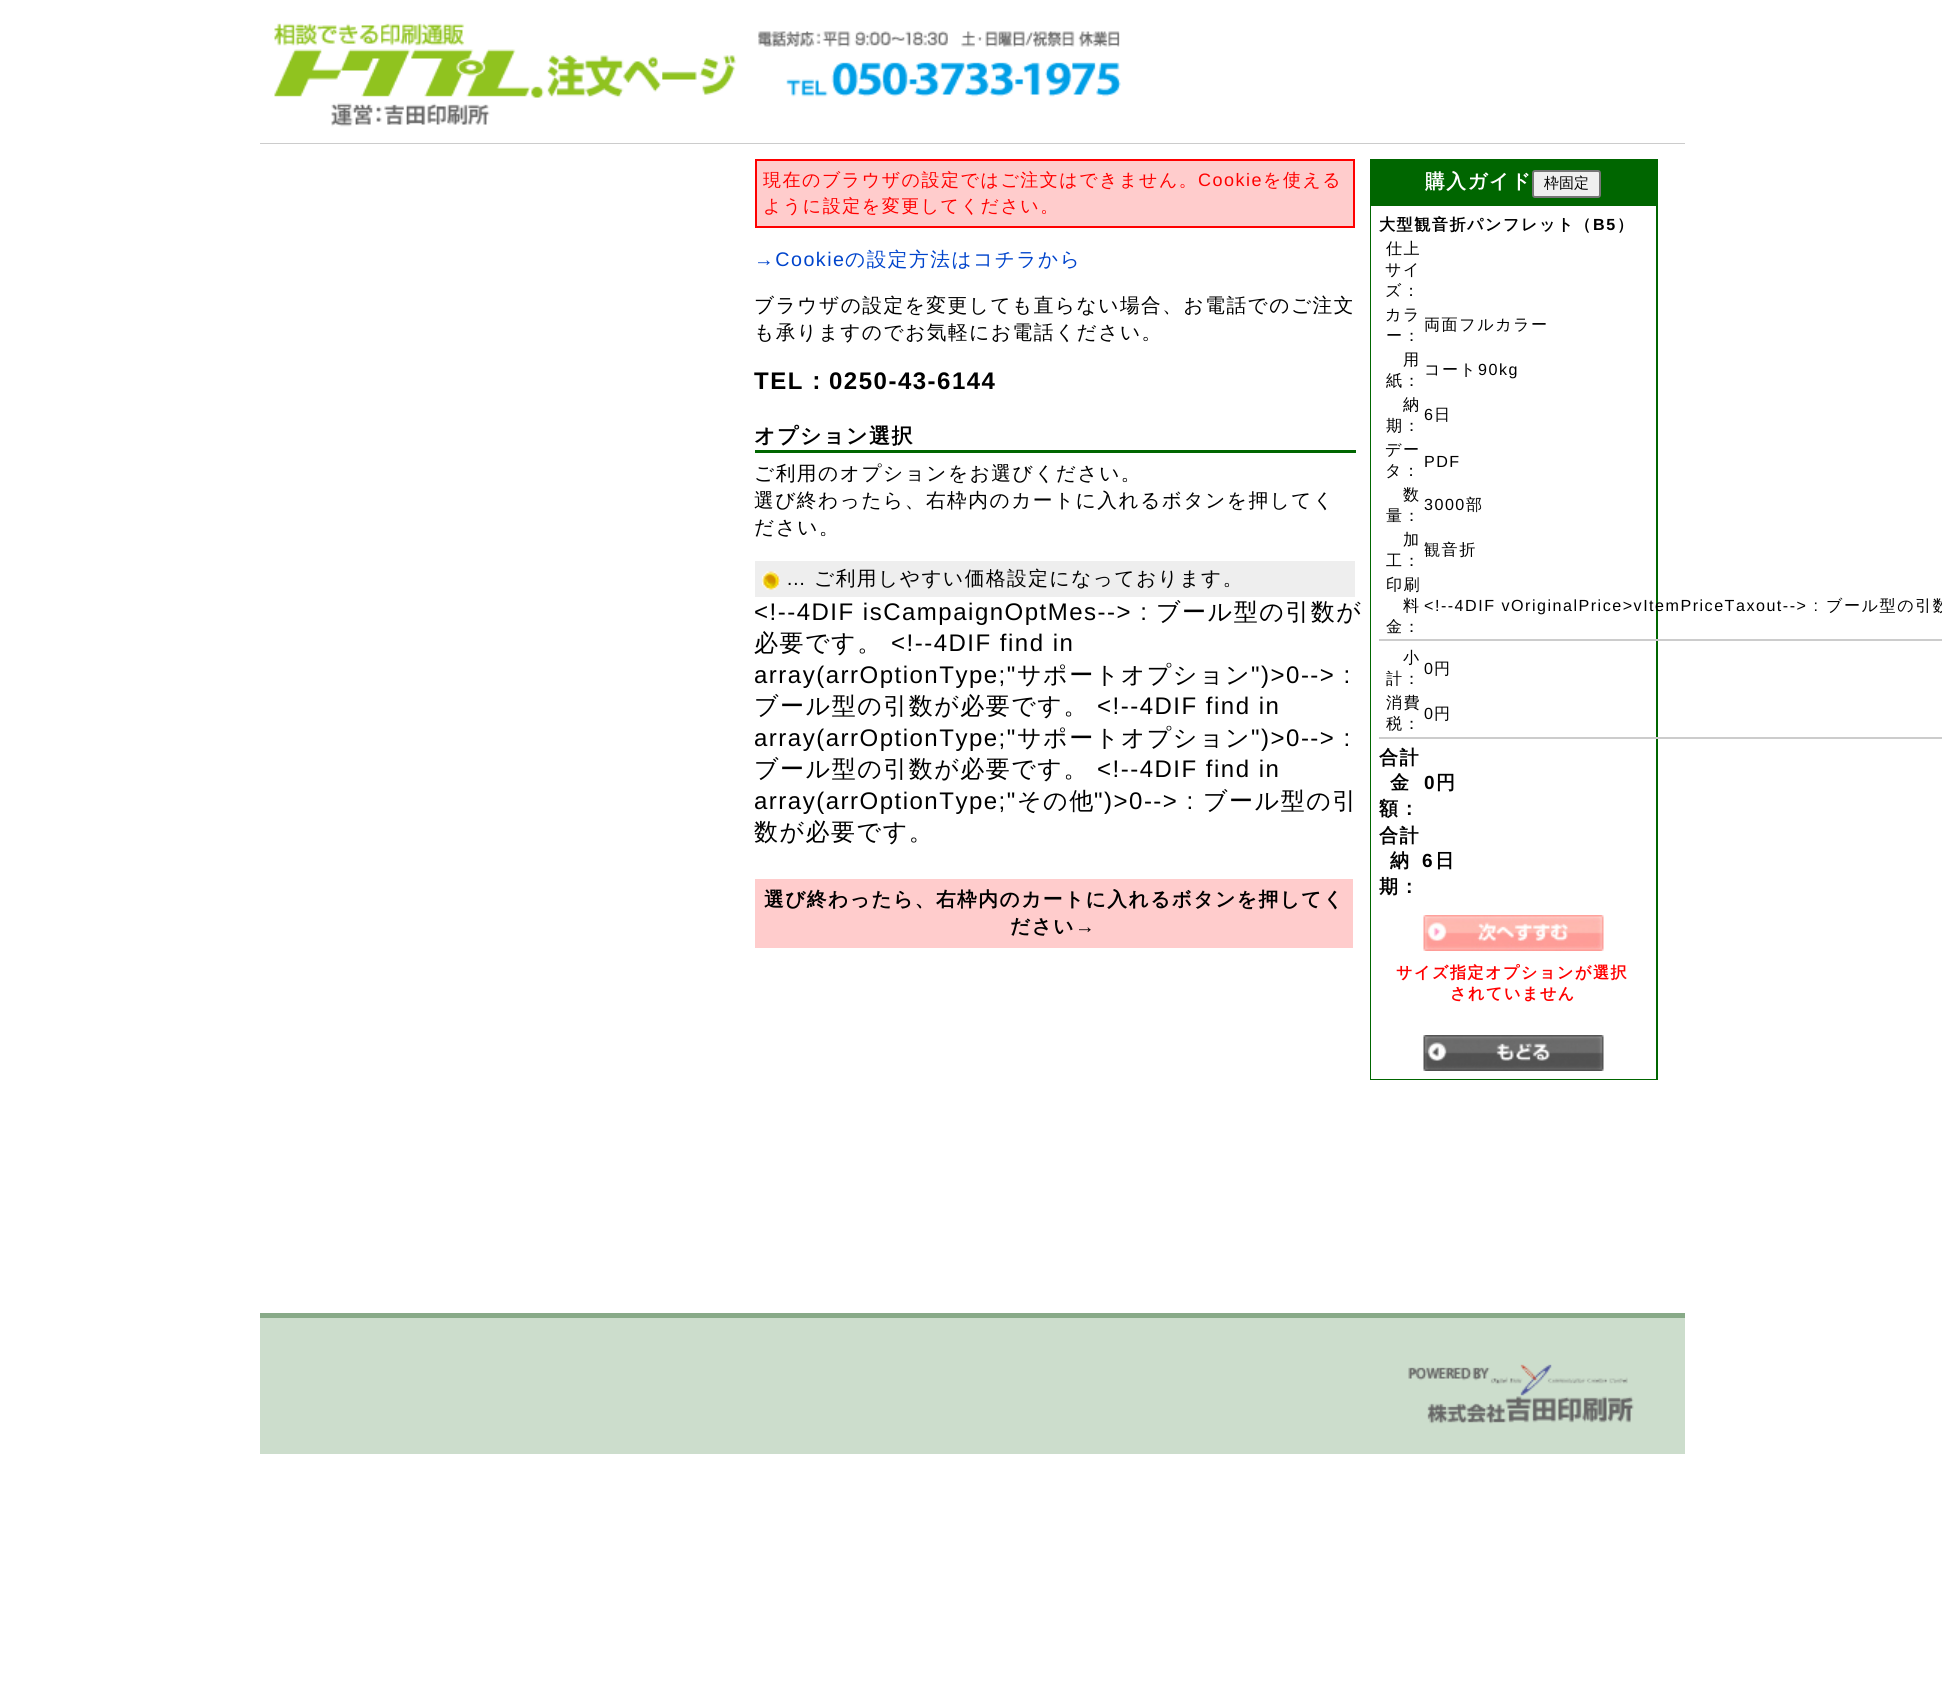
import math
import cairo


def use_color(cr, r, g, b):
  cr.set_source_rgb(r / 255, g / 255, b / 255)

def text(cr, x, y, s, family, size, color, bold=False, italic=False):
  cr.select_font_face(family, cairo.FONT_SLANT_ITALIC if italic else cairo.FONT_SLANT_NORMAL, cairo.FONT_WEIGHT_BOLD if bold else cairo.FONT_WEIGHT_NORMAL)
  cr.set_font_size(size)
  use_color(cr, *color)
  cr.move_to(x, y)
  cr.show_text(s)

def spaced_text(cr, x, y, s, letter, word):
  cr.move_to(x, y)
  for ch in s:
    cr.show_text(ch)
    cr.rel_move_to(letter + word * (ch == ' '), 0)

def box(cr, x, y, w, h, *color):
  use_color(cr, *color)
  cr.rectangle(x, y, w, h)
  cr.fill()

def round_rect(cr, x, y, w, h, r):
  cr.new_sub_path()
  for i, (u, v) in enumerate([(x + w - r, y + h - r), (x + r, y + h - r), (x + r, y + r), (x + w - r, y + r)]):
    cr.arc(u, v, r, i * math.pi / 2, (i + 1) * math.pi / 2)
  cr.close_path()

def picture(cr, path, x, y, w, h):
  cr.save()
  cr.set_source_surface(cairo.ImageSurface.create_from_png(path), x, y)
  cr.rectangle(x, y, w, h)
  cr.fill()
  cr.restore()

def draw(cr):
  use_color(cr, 255, 255, 255)
  cr.paint()
  picture(cr, "img_01.png", 274, 23, 847, 104)
  box(cr, 260, 143, 1425, 1, 204, 204, 204)
  use_color(cr, 255, 204, 204)
  cr.rectangle(756, 160, 598, 67)
  cr.fill_preserve()
  use_color(cr, 255, 0, 0)
  cr.stroke()
  box(cr, 755, 450, 601, 3, 0, 102, 0)
  box(cr, 755, 561, 600, 36, 238, 238, 238)
  picture(cr, "img_02.png", 762, 571, 18, 19)
  box(cr, 755, 879, 598, 69, 255, 204, 204)
  cr.rectangle(1371, 160, 286, 919)
  use_color(cr, 0, 102, 0)
  cr.stroke()
  box(cr, 1372, 161, 284, 45, 0, 102, 0)
  use_color(cr, 239, 239, 239)
  round_rect(cr, 1533, 171, 67, 26, 2)
  cr.fill_preserve()
  use_color(cr, 118, 118, 118)
  cr.stroke()
  box(cr, 1371, 206, 285, 873, 255, 255, 255)
  box(cr, 1379, 639, 563, 2, 204, 204, 204)
  box(cr, 1379, 737, 563, 2, 204, 204, 204)
  picture(cr, "img_03.png", 1423, 915, 181, 36)
  picture(cr, "img_04.png", 1423, 1035, 181, 36)
  box(cr, 260, 1318, 1425, 136, 204, 221, 204)
  box(cr, 260, 1313, 1425, 5, 136, 170, 136)
  picture(cr, "img_05.png", 1408, 1364, 226, 60)
  cr.select_font_face("WenQuanYi Zen Hei Medium")
  cr.set_font_size(18)
  use_color(cr, 255, 0, 0)
  spaced_text(cr, 763, 186, "現在のブラウザの設定ではご注文はできません。", 1.5, 0)
  cr.select_font_face("Liberation Sans")
  spaced_text(cr, 1198, 186, "Cookie", 1.5, 0)
  cr.select_font_face("WenQuanYi Zen Hei Medium")
  spaced_text(cr, 1263, 186, "を使える", 1.5, 0)
  spaced_text(cr, 763, 212, "ように設定を変更してください。", 1.5, 0)
  cr.select_font_face("Liberation Sans")
  cr.set_font_size(19.7)
  use_color(cr, 0, 68, 204)
  spaced_text(cr, 754, 266, "→Cookie", 1.5, 0)
  cr.select_font_face("WenQuanYi Zen Hei Medium")
  spaced_text(cr, 845, 266, "の設定方法はコチラから", 1.5, 0)
  use_color(cr, 0, 0, 0)
  spaced_text(cr, 754, 312, "ブラウザの設定を変更しても直らない場合、お電話でのご注文", 1.5, 0)
  spaced_text(cr, 754, 339, "も承りますのでお気軽にお電話ください。", 1.5, 0)
  cr.select_font_face("Liberation Sans", cairo.FONT_SLANT_NORMAL, cairo.FONT_WEIGHT_BOLD)
  cr.set_font_size(24)
  spaced_text(cr, 754, 389, "TEL", 1.5, 0)
  cr.select_font_face("WenQuanYi Zen Hei", cairo.FONT_SLANT_NORMAL, cairo.FONT_WEIGHT_BOLD)
  spaced_text(cr, 804, 389, "：", 1.5, 0)
  cr.select_font_face("Liberation Sans", cairo.FONT_SLANT_NORMAL, cairo.FONT_WEIGHT_BOLD)
  spaced_text(cr, 829, 389, "0250-43-6144", 1.5, 0)
  cr.select_font_face("WenQuanYi Zen Hei", cairo.FONT_SLANT_NORMAL, cairo.FONT_WEIGHT_BOLD)
  cr.set_font_size(21)
  spaced_text(cr, 754, 443, "オプション選択", 1.5, 0)
  cr.select_font_face("WenQuanYi Zen Hei Medium")
  cr.set_font_size(19.7)
  spaced_text(cr, 754, 480, "ご利用のオプションをお選びください。", 1.5, 0)
  spaced_text(cr, 754, 507, "選び終わったら、右枠内のカートに入れるボタンを押してく", 1.5, 0)
  spaced_text(cr, 754, 534, "ださい。", 1.5, 0)
  cr.select_font_face("Liberation Sans")
  spaced_text(cr, 786, 585, "…", 1.5, 0)
  cr.select_font_face("WenQuanYi Zen Hei Medium")
  spaced_text(cr, 814, 585, "ご利用しやすい価格設定になっております。", 1.5, 0)
  cr.select_font_face("Liberation Sans")
  cr.set_font_size(24)
  spaced_text(cr, 754, 620, "<!--4DIF isCampaignOptMes--> :", 1.5, 0)
  cr.select_font_face("WenQuanYi Zen Hei Medium")
  spaced_text(cr, 1156, 620, "ブール型の引数が", 1.5, 0)
  spaced_text(cr, 754, 651, "必要です。", 1.5, 0)
  cr.select_font_face("Liberation Sans")
  spaced_text(cr, 891, 651, "<!--4DIF find in", 1.5, 0)
  spaced_text(cr, 754, 683, "array(arrOptionType;\"", 1.5, 0)
  cr.select_font_face("WenQuanYi Zen Hei Medium")
  spaced_text(cr, 1017, 683, "サポートオプション", 1.5, 0)
  cr.select_font_face("Liberation Sans")
  spaced_text(cr, 1251, 683, "\")>0--> :", 1.5, 0)
  cr.select_font_face("WenQuanYi Zen Hei Medium")
  spaced_text(cr, 754, 714, "ブール型の引数が必要です。", 1.5, 0)
  cr.select_font_face("Liberation Sans")
  spaced_text(cr, 1097, 714, "<!--4DIF find in", 1.5, 0)
  spaced_text(cr, 754, 746, "array(arrOptionType;\"", 1.5, 0)
  cr.select_font_face("WenQuanYi Zen Hei Medium")
  spaced_text(cr, 1017, 746, "サポートオプション", 1.5, 0)
  cr.select_font_face("Liberation Sans")
  spaced_text(cr, 1251, 746, "\")>0--> :", 1.5, 0)
  cr.select_font_face("WenQuanYi Zen Hei Medium")
  spaced_text(cr, 754, 777, "ブール型の引数が必要です。", 1.5, 0)
  cr.select_font_face("Liberation Sans")
  spaced_text(cr, 1097, 777, "<!--4DIF find in", 1.5, 0)
  spaced_text(cr, 754, 809, "array(arrOptionType;\"", 1.5, 0)
  cr.select_font_face("WenQuanYi Zen Hei Medium")
  spaced_text(cr, 1017, 809, "その他", 1.5, 0)
  cr.select_font_face("Liberation Sans")
  spaced_text(cr, 1094, 809, "\")>0--> :", 1.5, 0)
  cr.select_font_face("WenQuanYi Zen Hei Medium")
  spaced_text(cr, 1203, 809, "ブール型の引", 1.5, 0)
  spaced_text(cr, 754, 840, "数が必要です。", 1.5, 0)
  cr.select_font_face("WenQuanYi Zen Hei", cairo.FONT_SLANT_NORMAL, cairo.FONT_WEIGHT_BOLD)
  cr.set_font_size(19.7)
  spaced_text(cr, 764, 906, "選び終わったら、右枠内のカートに入れるボタンを押してく", 1.5, 0)
  spaced_text(cr, 1010, 933, "ださい", 1.5, 0)
  cr.select_font_face("Liberation Sans", cairo.FONT_SLANT_NORMAL, cairo.FONT_WEIGHT_BOLD)
  spaced_text(cr, 1075, 933, "→", 1.5, 0)
  cr.select_font_face("WenQuanYi Zen Hei", cairo.FONT_SLANT_NORMAL, cairo.FONT_WEIGHT_BOLD)
  use_color(cr, 255, 255, 255)
  spaced_text(cr, 1425, 188, "購入ガイド", 1.5, 0)
  text(cr, 1544, 188, "枠固定", "WenQuanYi Zen Hei Medium", 15, (0, 0, 0))
  cr.select_font_face("WenQuanYi Zen Hei", cairo.FONT_SLANT_NORMAL, cairo.FONT_WEIGHT_BOLD)
  cr.set_font_size(16.1)
  spaced_text(cr, 1379, 230, "大型観音折パンフレット（", 1.5, 0)
  cr.select_font_face("Liberation Sans", cairo.FONT_SLANT_NORMAL, cairo.FONT_WEIGHT_BOLD)
  spaced_text(cr, 1593, 230, "B5", 1.5, 0)
  cr.select_font_face("WenQuanYi Zen Hei", cairo.FONT_SLANT_NORMAL, cairo.FONT_WEIGHT_BOLD)
  spaced_text(cr, 1617, 230, "）", 1.5, 0)
  cr.select_font_face("WenQuanYi Zen Hei Medium")
  spaced_text(cr, 1386, 254, "仕上", 1.5, 0)
  spaced_text(cr, 1385, 275, "サイ", 1.5, 0)
  spaced_text(cr, 1385, 296, "ズ：", 1.5, 0)
  spaced_text(cr, 1385, 320, "カラ", 1.5, 0)
  spaced_text(cr, 1386, 341, "ー：", 1.5, 0)
  spaced_text(cr, 1424, 330, "両面フルカラー", 1.5, 0)
  spaced_text(cr, 1403, 365, "用", 1.5, 0)
  spaced_text(cr, 1386, 386, "紙：", 1.5, 0)
  spaced_text(cr, 1424, 375, "コート", 1.5, 0)
  cr.select_font_face("Liberation Sans")
  spaced_text(cr, 1478, 375, "90kg", 1.5, 0)
  cr.select_font_face("WenQuanYi Zen Hei Medium")
  spaced_text(cr, 1403, 410, "納", 1.5, 0)
  spaced_text(cr, 1386, 431, "期：", 1.5, 0)
  cr.select_font_face("Liberation Sans")
  spaced_text(cr, 1424, 420, "6", 1.5, 0)
  cr.select_font_face("WenQuanYi Zen Hei Medium")
  spaced_text(cr, 1434, 420, "日", 1.5, 0)
  spaced_text(cr, 1385, 455, "デー", 1.5, 0)
  spaced_text(cr, 1385, 476, "タ：", 1.5, 0)
  cr.select_font_face("Liberation Sans")
  spaced_text(cr, 1424, 467, "PDF", 1.5, 0)
  cr.select_font_face("WenQuanYi Zen Hei Medium")
  spaced_text(cr, 1403, 500, "数", 1.5, 0)
  spaced_text(cr, 1386, 521, "量：", 1.5, 0)
  cr.select_font_face("Liberation Sans")
  spaced_text(cr, 1424, 510, "3000", 1.5, 0)
  cr.select_font_face("WenQuanYi Zen Hei Medium")
  spaced_text(cr, 1466, 510, "部", 1.5, 0)
  spaced_text(cr, 1403, 545, "加", 1.5, 0)
  spaced_text(cr, 1386, 566, "工：", 1.5, 0)
  spaced_text(cr, 1424, 555, "観音折", 1.5, 0)
  spaced_text(cr, 1386, 590, "印刷", 1.5, 0)
  spaced_text(cr, 1403, 611, "料", 1.5, 0)
  spaced_text(cr, 1386, 632, "金：", 1.5, 0)
  cr.select_font_face("Liberation Sans")
  spaced_text(cr, 1424, 611, "<!--4DIF vOriginalPrice>vItemPriceTaxout--> :", 1.5, 0)
  cr.select_font_face("WenQuanYi Zen Hei Medium")
  spaced_text(cr, 1826, 611, "ブール型の引数", 1.5, 0)
  spaced_text(cr, 1403, 663, "小", 1.5, 0)
  spaced_text(cr, 1386, 684, "計：", 1.5, 0)
  cr.select_font_face("Liberation Sans")
  spaced_text(cr, 1424, 674, "0", 1.5, 0)
  cr.select_font_face("WenQuanYi Zen Hei Medium")
  spaced_text(cr, 1434, 674, "円", 1.5, 0)
  spaced_text(cr, 1386, 708, "消費", 1.5, 0)
  spaced_text(cr, 1386, 729, "税：", 1.5, 0)
  cr.select_font_face("Liberation Sans")
  spaced_text(cr, 1424, 719, "0", 1.5, 0)
  cr.select_font_face("WenQuanYi Zen Hei Medium")
  spaced_text(cr, 1434, 719, "円", 1.5, 0)
  cr.select_font_face("WenQuanYi Zen Hei", cairo.FONT_SLANT_NORMAL, cairo.FONT_WEIGHT_BOLD)
  cr.set_font_size(19)
  spaced_text(cr, 1379, 764, "合計", 1.5, 0)
  spaced_text(cr, 1390, 789, "金", 1.5, 0)
  spaced_text(cr, 1379, 815, "額：", 1.5, 0)
  cr.select_font_face("Liberation Sans", cairo.FONT_SLANT_NORMAL, cairo.FONT_WEIGHT_BOLD)
  spaced_text(cr, 1424, 789, "0", 1.5, 0)
  cr.select_font_face("WenQuanYi Zen Hei", cairo.FONT_SLANT_NORMAL, cairo.FONT_WEIGHT_BOLD)
  spaced_text(cr, 1436, 789, "円", 1.5, 0)
  spaced_text(cr, 1379, 842, "合計", 1.5, 0)
  spaced_text(cr, 1390, 867, "納", 1.5, 0)
  spaced_text(cr, 1379, 893, "期：", 1.5, 0)
  cr.select_font_face("Liberation Sans", cairo.FONT_SLANT_NORMAL, cairo.FONT_WEIGHT_BOLD)
  spaced_text(cr, 1422, 867, "6", 1.5, 0)
  cr.select_font_face("WenQuanYi Zen Hei", cairo.FONT_SLANT_NORMAL, cairo.FONT_WEIGHT_BOLD)
  spaced_text(cr, 1435, 867, "日", 1.5, 0)
  cr.set_font_size(16.1)
  use_color(cr, 255, 0, 0)
  spaced_text(cr, 1396, 978, "サイズ指定オプションが選択", 1.5, 0)
  spaced_text(cr, 1450, 999, "されていません", 1.5, 0)


surface = cairo.ImageSurface(cairo.FORMAT_RGB24, 1942, 1691)
cr = cairo.Context(surface)
options = cairo.FontOptions()
options.set_hint_metrics(cairo.HINT_METRICS_OFF)
options.set_hint_style(cairo.HINT_STYLE_NONE)
cr.set_font_options(options)
cr.set_miter_limit(4)
draw(cr)
surface.write_to_png("out.png")
